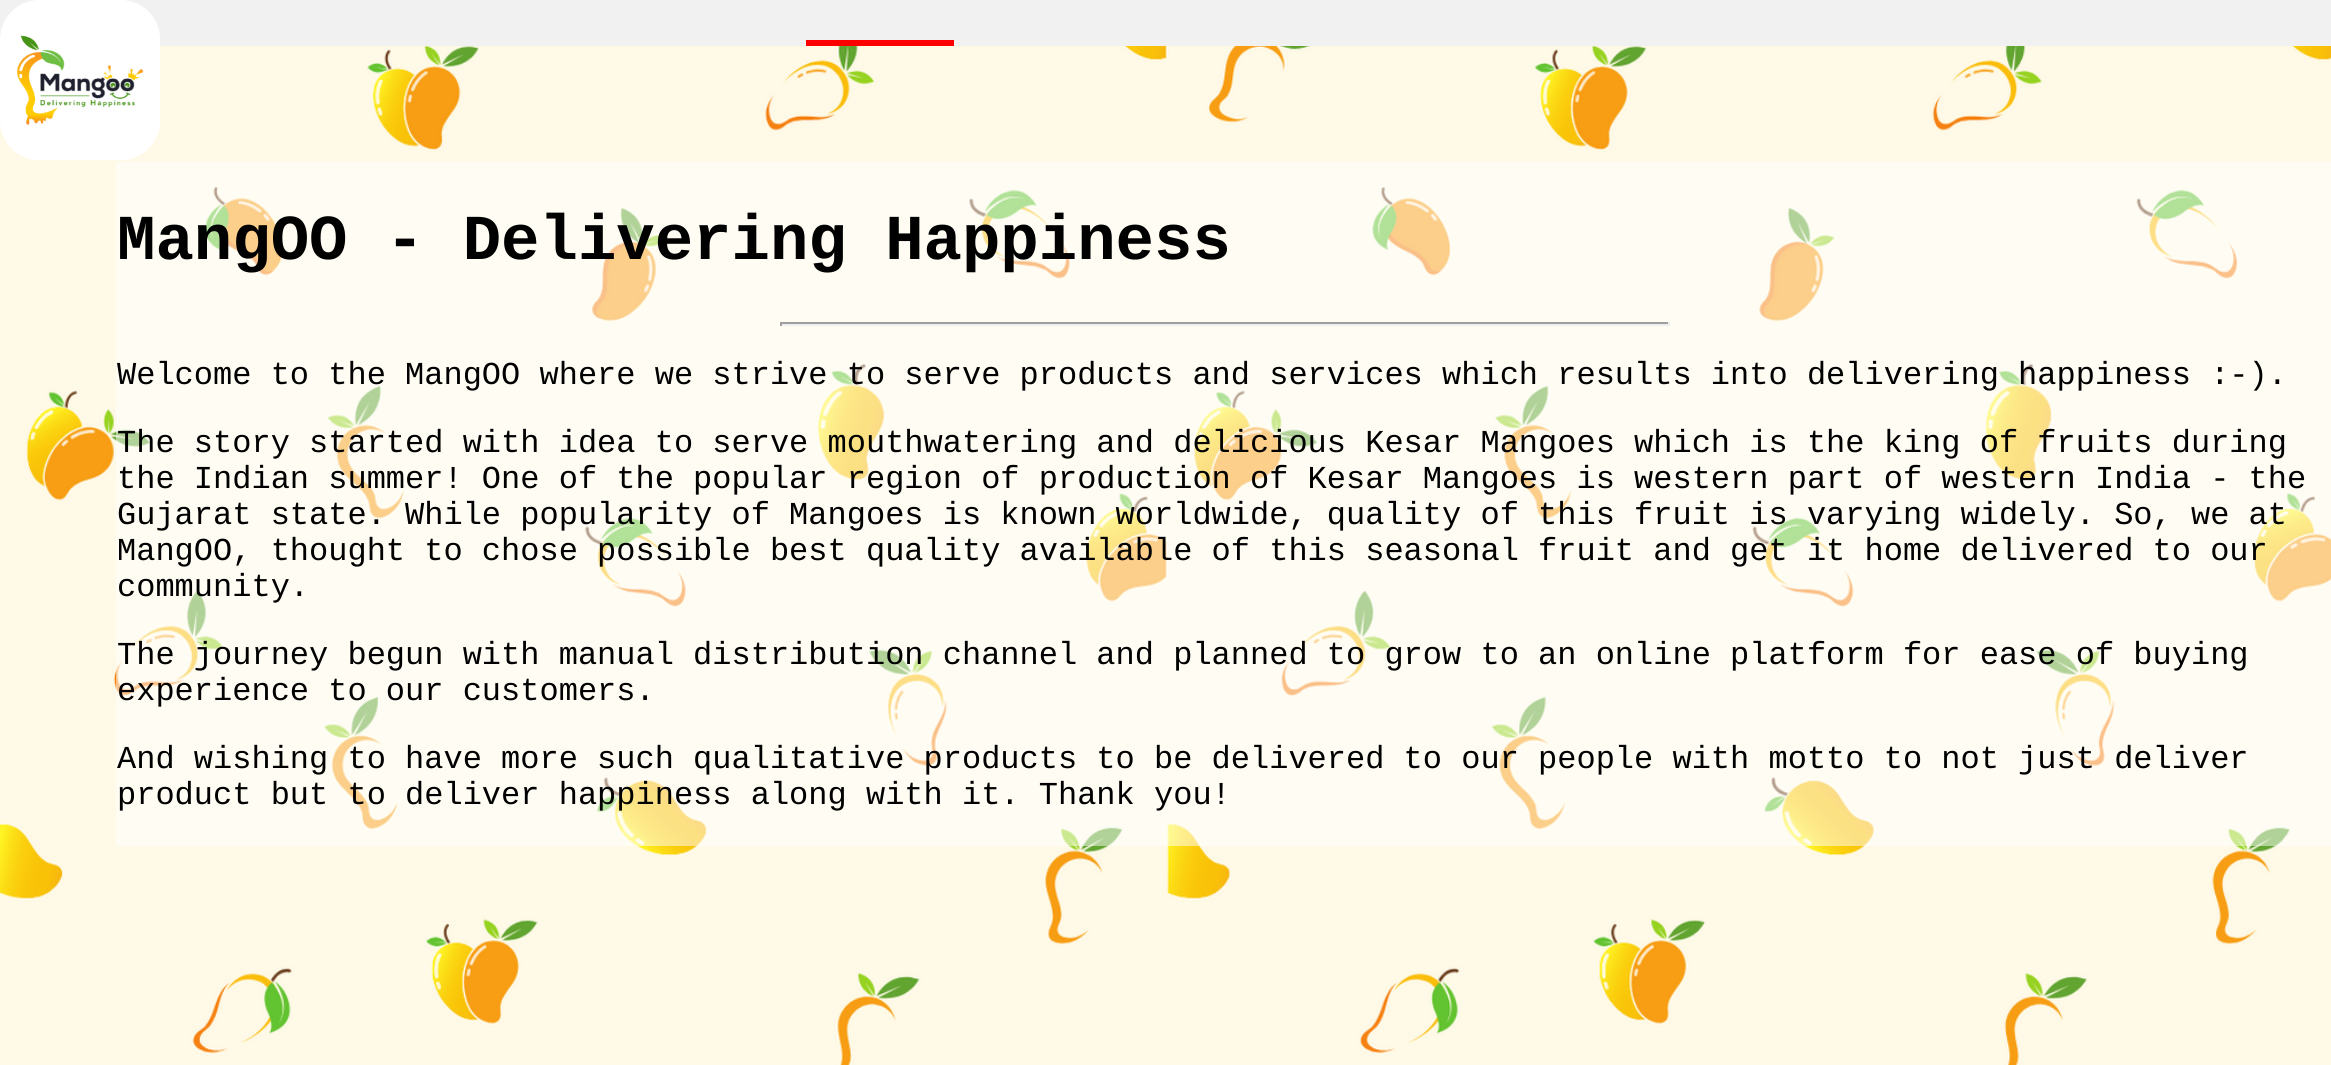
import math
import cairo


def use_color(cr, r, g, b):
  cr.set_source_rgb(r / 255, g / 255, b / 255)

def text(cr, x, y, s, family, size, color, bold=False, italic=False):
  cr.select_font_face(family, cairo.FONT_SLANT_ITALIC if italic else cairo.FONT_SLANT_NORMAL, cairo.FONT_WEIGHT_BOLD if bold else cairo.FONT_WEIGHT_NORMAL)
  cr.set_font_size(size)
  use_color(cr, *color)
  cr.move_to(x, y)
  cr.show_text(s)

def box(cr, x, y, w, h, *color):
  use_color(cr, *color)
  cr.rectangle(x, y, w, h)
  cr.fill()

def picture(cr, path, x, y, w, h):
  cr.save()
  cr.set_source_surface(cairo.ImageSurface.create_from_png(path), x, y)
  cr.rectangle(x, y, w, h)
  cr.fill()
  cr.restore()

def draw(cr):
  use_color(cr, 241, 241, 241)
  cr.paint()
  box(cr, 806, 40, 148, 6, 255, 0, 0)
  picture(cr, "img_01.png", 0, 46, 2331, 1019)
  picture(cr, "img_02.png", 0, 0, 160, 160)
  cr.set_source_rgba(1, 1, 1, 0.5)
  cr.rectangle(116, 162, 2215, 684)
  cr.fill()
  box(cr, 780, 322, 890, 2, 159, 159, 159)
  box(cr, 1668, 322, 2, 4, 238, 238, 238)
  box(cr, 780, 324, 890, 2, 238, 238, 238)
  box(cr, 780, 322, 2, 4, 159, 159, 159)
  text(cr, 117, 259, "MangOO - Delivering Happiness", "Liberation Mono", 64, (0, 0, 0), bold=True)
  text(cr, 117, 384, "Welcome to the MangOO where we strive to serve products and services which results into delivering happiness :-).", "Liberation Mono", 32, (0, 0, 0))
  text(cr, 117, 452, "The story started with idea to serve mouthwatering and delicious Kesar Mangoes which is the king of fruits during", "Liberation Mono", 32, (0, 0, 0))
  text(cr, 117, 488, "the Indian summer! One of the popular region of production of Kesar Mangoes is western part of western India - the", "Liberation Mono", 32, (0, 0, 0))
  text(cr, 117, 524, "Gujarat state. While popularity of Mangoes is known worldwide, quality of this fruit is varying widely. So, we at", "Liberation Mono", 32, (0, 0, 0))
  text(cr, 117, 560, "MangOO, thought to chose possible best quality available of this seasonal fruit and get it home delivered to our", "Liberation Mono", 32, (0, 0, 0))
  text(cr, 117, 596, "community.", "Liberation Mono", 32, (0, 0, 0))
  text(cr, 117, 664, "The journey begun with manual distribution channel and planned to grow to an online platform for ease of buying", "Liberation Mono", 32, (0, 0, 0))
  text(cr, 117, 700, "experience to our customers.", "Liberation Mono", 32, (0, 0, 0))
  text(cr, 117, 768, "And wishing to have more such qualitative products to be delivered to our people with motto to not just deliver", "Liberation Mono", 32, (0, 0, 0))
  text(cr, 117, 804, "product but to deliver happiness along with it. Thank you!", "Liberation Mono", 32, (0, 0, 0))


surface = cairo.ImageSurface(cairo.FORMAT_RGB24, 2331, 1065)
cr = cairo.Context(surface)
options = cairo.FontOptions()
options.set_hint_metrics(cairo.HINT_METRICS_OFF)
options.set_hint_style(cairo.HINT_STYLE_NONE)
cr.set_font_options(options)
cr.set_miter_limit(4)
draw(cr)
surface.write_to_png("out.png")
